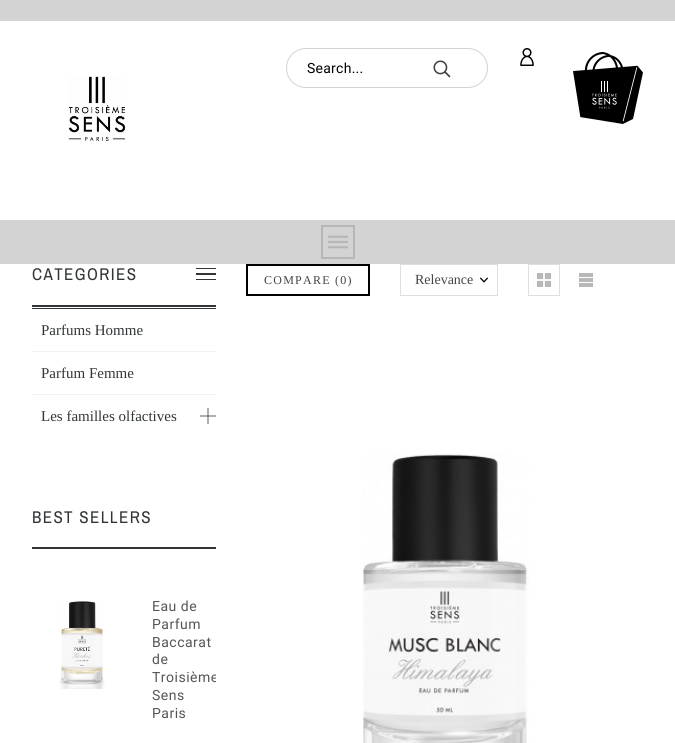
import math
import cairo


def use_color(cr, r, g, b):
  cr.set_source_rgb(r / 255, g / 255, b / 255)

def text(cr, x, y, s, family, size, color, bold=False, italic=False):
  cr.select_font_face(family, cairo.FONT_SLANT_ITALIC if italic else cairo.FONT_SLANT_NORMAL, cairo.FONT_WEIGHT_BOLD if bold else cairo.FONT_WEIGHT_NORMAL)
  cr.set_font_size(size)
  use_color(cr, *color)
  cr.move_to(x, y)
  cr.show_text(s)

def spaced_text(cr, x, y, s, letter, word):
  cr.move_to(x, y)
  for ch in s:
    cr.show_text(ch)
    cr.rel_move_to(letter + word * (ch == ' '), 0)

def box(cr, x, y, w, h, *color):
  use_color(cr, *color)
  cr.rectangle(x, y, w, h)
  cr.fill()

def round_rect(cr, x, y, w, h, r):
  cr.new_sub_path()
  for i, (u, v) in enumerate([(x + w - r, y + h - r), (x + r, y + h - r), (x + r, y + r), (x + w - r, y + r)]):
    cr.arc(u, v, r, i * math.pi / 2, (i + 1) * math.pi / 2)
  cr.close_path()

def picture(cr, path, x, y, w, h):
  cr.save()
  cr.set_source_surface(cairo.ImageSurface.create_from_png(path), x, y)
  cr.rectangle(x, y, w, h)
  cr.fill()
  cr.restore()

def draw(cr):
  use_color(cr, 255, 255, 255)
  cr.paint()
  box(cr, 0, 0, 675, 21, 211, 211, 211)
  round_rect(cr, 286.5, 48.5, 201, 39, 19.5)
  cr.set_line_width(1)
  cr.stroke()
  picture(cr, "img_01.png", 433, 60, 18, 18)
  picture(cr, "img_02.png", 520, 48, 14, 18)
  picture(cr, "img_03.png", 573, 52, 70, 72)
  picture(cr, "img_04.png", 68, 76, 58, 65)
  box(cr, 0, 220, 675, 44, 211, 211, 211)
  cr.rectangle(322, 226, 32, 32)
  use_color(cr, 182, 182, 182)
  cr.set_line_width(2)
  cr.stroke()
  picture(cr, "img_05.png", 328, 235, 20, 14)
  box(cr, 32, 305, 184, 2, 49, 53, 55)
  box(cr, 196, 268, 20, 1, 49, 53, 55)
  box(cr, 196, 273, 20, 2, 49, 53, 55)
  box(cr, 196, 279, 20, 1, 49, 53, 55)
  box(cr, 32, 308, 184, 1, 49, 53, 55)
  box(cr, 32, 351, 184, 1, 243, 243, 243)
  box(cr, 32, 394, 184, 1, 243, 243, 243)
  cr.new_path()
  cr.move_to(200, 416)
  cr.line_to(216, 416)
  cr.move_to(208, 408)
  cr.line_to(208, 424)
  use_color(cr, 51, 51, 51)
  cr.set_line_width(0.8)
  cr.stroke()
  box(cr, 32, 547, 184, 2, 49, 53, 55)
  picture(cr, "img_06.png", 59, 601, 46, 88)
  cr.rectangle(247, 265, 122, 30)
  use_color(cr, 0, 0, 0)
  cr.set_line_width(2)
  cr.stroke()
  cr.rectangle(400.5, 264.5, 97, 31)
  use_color(cr, 223, 223, 223)
  cr.set_line_width(1)
  cr.stroke()
  picture(cr, "img_07.png", 480, 277, 8, 6)
  cr.rectangle(528.5, 264.5, 31, 31)
  cr.stroke()
  picture(cr, "img_08.png", 537, 273, 14, 14)
  picture(cr, "img_09.png", 579, 273, 14, 14)
  picture(cr, "img_10.png", 363, 454, 167, 289)
  cr.select_font_face("Roboto")
  cr.set_font_size(14)
  use_color(cr, 0, 0, 0)
  spaced_text(cr, 307, 73, "Search...", 0.25, 0)
  cr.select_font_face("Archivo Narrow")
  cr.set_font_size(17)
  use_color(cr, 49, 53, 55)
  spaced_text(cr, 32, 280, "CATEGORIES", 1.4, 0)
  text(cr, 41, 335, "Parfums Homme", "Liberation Serif", 15, (49, 53, 55))
  text(cr, 41, 378, "Parfum Femme", "Liberation Serif", 15, (49, 53, 55))
  text(cr, 41, 421, "Les familles olfactives", "Liberation Serif", 15, (49, 53, 55))
  cr.select_font_face("Archivo Narrow")
  cr.set_font_size(17)
  spaced_text(cr, 32, 523, "BEST SELLERS", 1.4, 0)
  cr.select_font_face("Roboto")
  cr.set_font_size(14)
  use_color(cr, 85, 85, 85)
  spaced_text(cr, 152, 611, "Eau de", 0.5, 0)
  spaced_text(cr, 152, 629, "Parfum", 0.5, 0)
  spaced_text(cr, 152, 647, "Baccarat", 0.5, 0)
  spaced_text(cr, 152, 664, "de", 0.5, 0)
  cr.save()
  cr.rectangle(32, 507, 184, 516)
  cr.clip()
  spaced_text(cr, 152, 682, "Troisième", 0.5, 0)
  cr.restore()
  spaced_text(cr, 152, 700, "Sens", 0.5, 0)
  spaced_text(cr, 152, 718, "Paris", 0.5, 0)
  cr.select_font_face("Liberation Serif")
  cr.set_font_size(12)
  use_color(cr, 68, 68, 68)
  spaced_text(cr, 264, 284, "COMPARE (0)", 1.25, 0)
  text(cr, 415, 284, "Relevance", "Liberation Serif", 14, (68, 68, 68))


surface = cairo.ImageSurface(cairo.FORMAT_RGB24, 675, 743)
cr = cairo.Context(surface)
options = cairo.FontOptions()
options.set_hint_metrics(cairo.HINT_METRICS_OFF)
options.set_hint_style(cairo.HINT_STYLE_NONE)
cr.set_font_options(options)
cr.set_miter_limit(4)
draw(cr)
surface.write_to_png("out.png")
